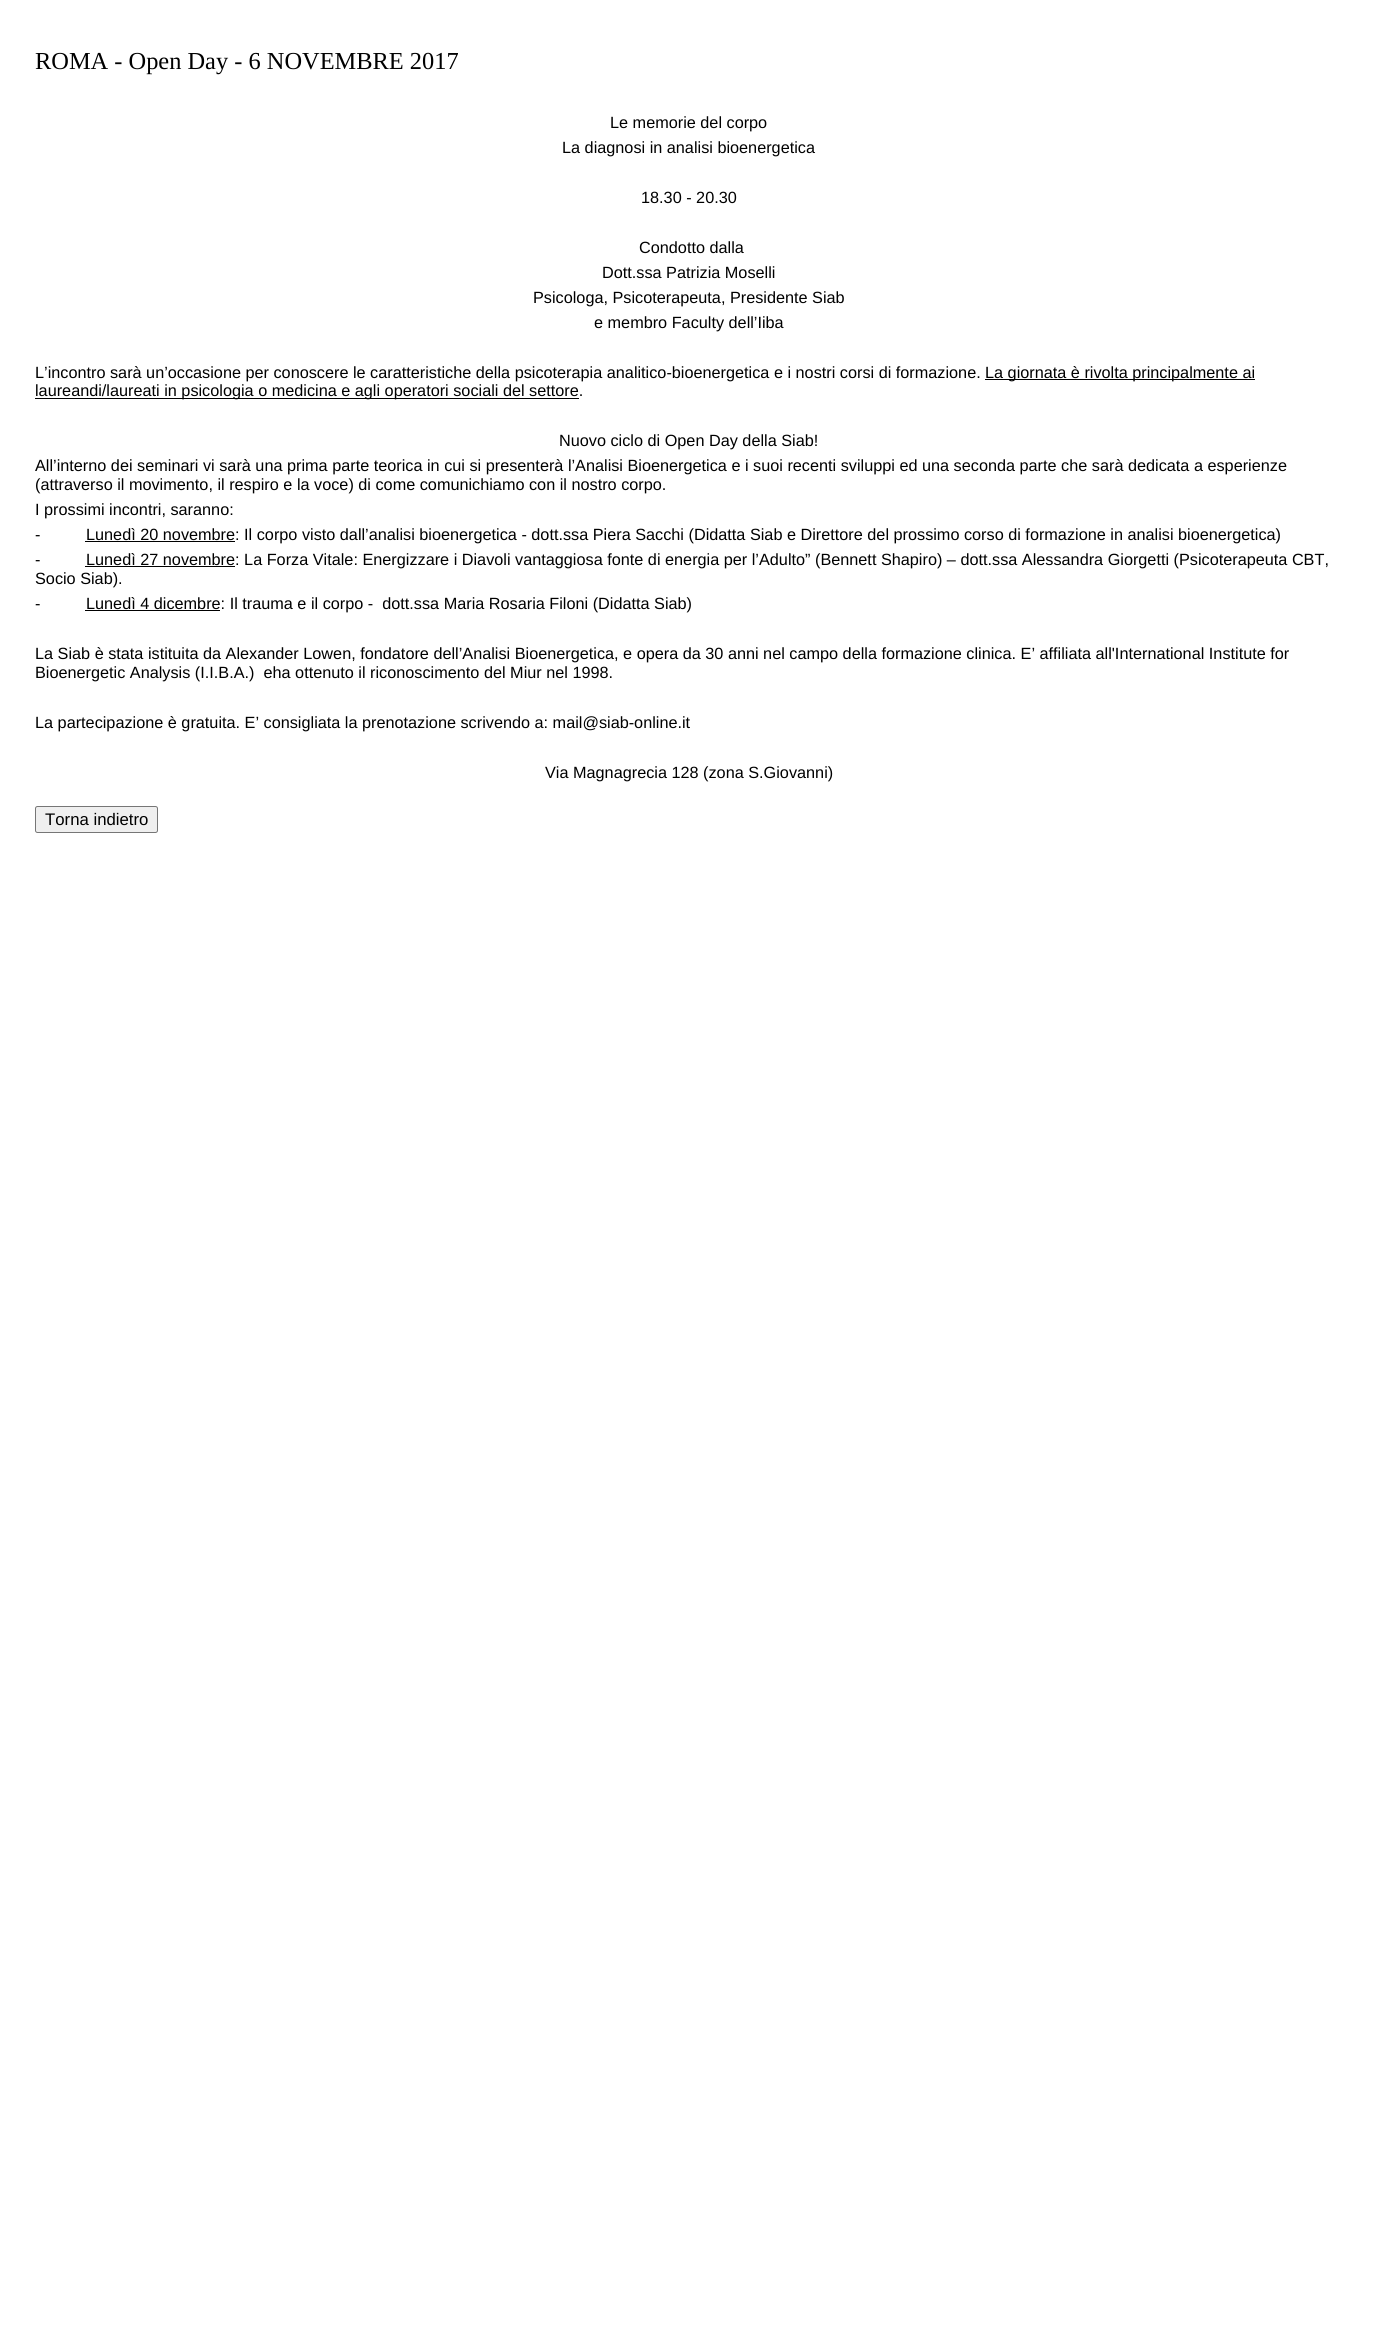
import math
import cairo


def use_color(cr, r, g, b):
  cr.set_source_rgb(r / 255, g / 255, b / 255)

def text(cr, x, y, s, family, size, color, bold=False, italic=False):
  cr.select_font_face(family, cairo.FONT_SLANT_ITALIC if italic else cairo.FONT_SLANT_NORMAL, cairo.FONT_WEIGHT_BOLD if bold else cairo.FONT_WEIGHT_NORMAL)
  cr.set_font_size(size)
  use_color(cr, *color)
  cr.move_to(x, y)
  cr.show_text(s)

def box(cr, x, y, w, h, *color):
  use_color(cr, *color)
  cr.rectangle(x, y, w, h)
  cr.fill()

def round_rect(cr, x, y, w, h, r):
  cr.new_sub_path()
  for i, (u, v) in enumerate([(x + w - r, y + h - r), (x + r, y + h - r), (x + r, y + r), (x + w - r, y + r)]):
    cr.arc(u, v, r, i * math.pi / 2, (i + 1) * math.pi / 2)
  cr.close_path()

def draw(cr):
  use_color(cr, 255, 255, 255)
  cr.paint()
  box(cr, 985, 379, 270, 1, 0, 0, 0)
  box(cr, 35, 398, 544, 1, 0, 0, 0)
  box(cr, 85, 541, 150, 1, 0, 0, 0)
  box(cr, 85, 566, 150, 1, 0, 0, 0)
  box(cr, 85, 610, 135, 1, 0, 0, 0)
  use_color(cr, 239, 239, 239)
  round_rect(cr, 35.5, 806.5, 122, 26, 2)
  cr.fill_preserve()
  use_color(cr, 118, 118, 118)
  cr.set_line_width(1)
  cr.stroke()
  text(cr, 35, 69, "ROMA - Open Day - 6 NOVEMBRE 2017", "Liberation Serif", 24.4, (0, 0, 0))
  text(cr, 610, 128, "Le memorie del corpo", "Liberation Sans", 16.25, (0, 0, 0))
  text(cr, 562, 153, "La diagnosi in analisi bioenergetica", "Liberation Sans", 16.25, (0, 0, 0))
  text(cr, 641, 203, "18.30 - 20.30", "Liberation Sans", 16.25, (0, 0, 0))
  text(cr, 639, 253, "Condotto dalla", "Liberation Sans", 16.25, (0, 0, 0))
  text(cr, 602, 278, "Dott.ssa Patrizia Moselli", "Liberation Sans", 16.25, (0, 0, 0))
  text(cr, 533, 303, "Psicologa, Psicoterapeuta, Presidente Siab", "Liberation Sans", 16.25, (0, 0, 0))
  text(cr, 594, 328, "e membro Faculty dell’Iiba", "Liberation Sans", 16.25, (0, 0, 0))
  text(cr, 35, 378, "L’incontro sarà un’occasione per conoscere le caratteristiche della psicoterapia analitico-bioenergetica e i nostri corsi di formazione.", "Liberation Sans", 16.25, (0, 0, 0))
  text(cr, 985, 378, "La giornata è rivolta principalmente ai", "Liberation Sans", 16.25, (0, 0, 0))
  text(cr, 35, 396, "laureandi/laureati in psicologia o medicina e agli operatori sociali del settore.", "Liberation Sans", 16.25, (0, 0, 0))
  text(cr, 559, 446, "Nuovo ciclo di Open Day della Siab!", "Liberation Sans", 16.25, (0, 0, 0))
  text(cr, 35, 471, "All’interno dei seminari vi sarà una prima parte teorica in cui si presenterà l’Analisi Bioenergetica e i suoi recenti sviluppi ed una seconda parte che sarà dedicata a esperienze", "Liberation Sans", 16.25, (0, 0, 0))
  text(cr, 35, 490, "(attraverso il movimento, il respiro e la voce) di come comunichiamo con il nostro corpo.", "Liberation Sans", 16.25, (0, 0, 0))
  text(cr, 35, 515, "I prossimi incontri, saranno:", "Liberation Sans", 16.25, (0, 0, 0))
  text(cr, 35, 540, "-", "Liberation Sans", 16.25, (0, 0, 0))
  text(cr, 86, 540, "Lunedì 20 novembre: Il corpo visto dall’analisi bioenergetica - dott.ssa Piera Sacchi (Didatta Siab e Direttore del prossimo corso di formazione in analisi bioenergetica)", "Liberation Sans", 16.25, (0, 0, 0))
  text(cr, 35, 565, "-", "Liberation Sans", 16.25, (0, 0, 0))
  text(cr, 86, 565, "Lunedì 27 novembre: La Forza Vitale: Energizzare i Diavoli vantaggiosa fonte di energia per l’Adulto” (Bennett Shapiro) – dott.ssa Alessandra Giorgetti (Psicoterapeuta CBT,", "Liberation Sans", 16.25, (0, 0, 0))
  text(cr, 35, 584, "Socio Siab).", "Liberation Sans", 16.25, (0, 0, 0))
  text(cr, 35, 609, "-", "Liberation Sans", 16.25, (0, 0, 0))
  text(cr, 86, 609, "Lunedì 4 dicembre: Il trauma e il corpo -  dott.ssa Maria Rosaria Filoni (Didatta Siab)", "Liberation Sans", 16.25, (0, 0, 0))
  text(cr, 35, 659, "La Siab è stata istituita da Alexander Lowen, fondatore dell’Analisi Bioenergetica, e opera da 30 anni nel campo della formazione clinica. E’ affiliata all'International Institute for", "Liberation Sans", 16.25, (0, 0, 0))
  text(cr, 35, 678, "Bioenergetic Analysis (I.I.B.A.)  eha ottenuto il riconoscimento del Miur nel 1998.", "Liberation Sans", 16.25, (0, 0, 0))
  text(cr, 35, 728, "La partecipazione è gratuita. E’ consigliata la prenotazione scrivendo a: mail@siab-online.it", "Liberation Sans", 16.25, (0, 0, 0))
  text(cr, 545, 778, "Via Magnagrecia 128 (zona S.Giovanni)", "Liberation Sans", 16.25, (0, 0, 0))
  text(cr, 45, 825, "Torna indietro", "Liberation Sans", 16.75, (0, 0, 0))


surface = cairo.ImageSurface(cairo.FORMAT_RGB24, 1377, 2327)
cr = cairo.Context(surface)
options = cairo.FontOptions()
options.set_hint_metrics(cairo.HINT_METRICS_OFF)
options.set_hint_style(cairo.HINT_STYLE_NONE)
cr.set_font_options(options)
cr.set_miter_limit(4)
draw(cr)
surface.write_to_png("out.png")
